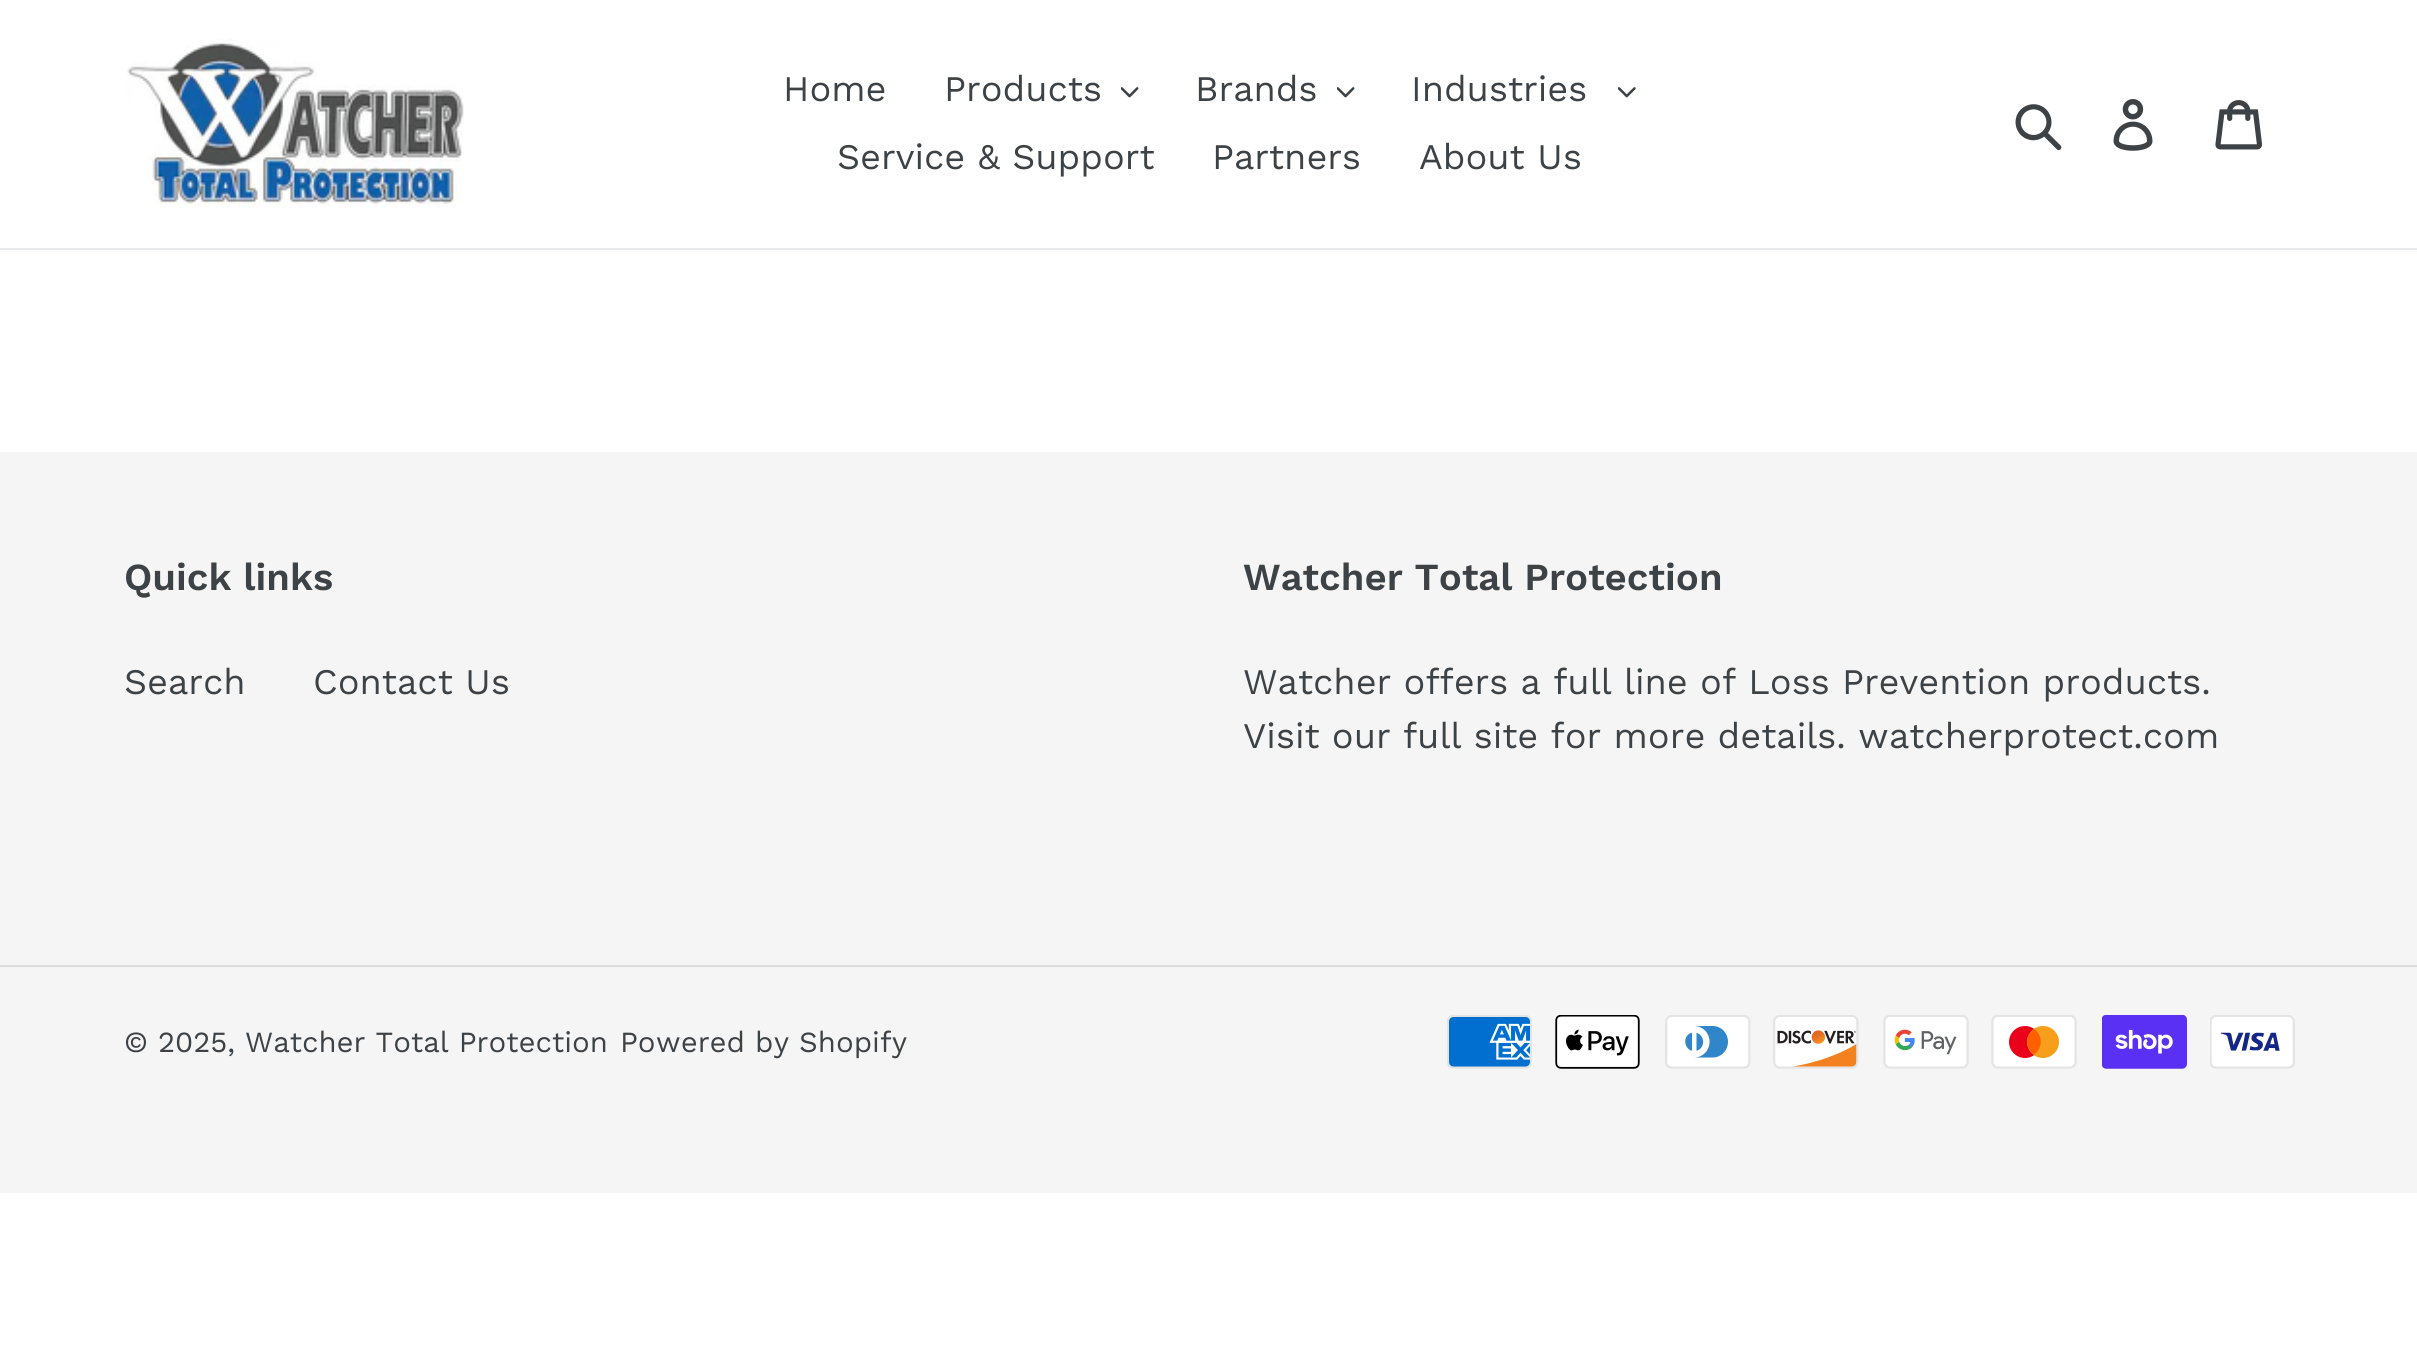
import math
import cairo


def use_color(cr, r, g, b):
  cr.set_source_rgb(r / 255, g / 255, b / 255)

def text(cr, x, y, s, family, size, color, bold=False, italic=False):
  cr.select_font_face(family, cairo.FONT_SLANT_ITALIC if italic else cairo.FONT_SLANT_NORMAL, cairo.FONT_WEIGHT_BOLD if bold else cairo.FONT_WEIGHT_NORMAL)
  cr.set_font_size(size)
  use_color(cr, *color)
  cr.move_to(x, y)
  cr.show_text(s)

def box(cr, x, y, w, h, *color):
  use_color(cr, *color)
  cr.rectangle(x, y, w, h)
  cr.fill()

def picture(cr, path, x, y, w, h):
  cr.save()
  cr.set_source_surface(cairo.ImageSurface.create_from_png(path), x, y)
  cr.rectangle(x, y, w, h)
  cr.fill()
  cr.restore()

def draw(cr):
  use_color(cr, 255, 255, 255)
  cr.paint()
  box(cr, 0, 248, 2417, 2, 232, 233, 235)
  picture(cr, "img_01.png", 127, 38, 337, 170)
  picture(cr, "img_02.png", 1121, 87, 18, 11)
  picture(cr, "img_02.png", 1337, 87, 18, 11)
  picture(cr, "img_03.png", 1618, 87, 18, 11)
  picture(cr, "img_04.png", 2015, 104, 47, 47)
  picture(cr, "img_05.png", 2113, 99, 40, 52)
  picture(cr, "img_06.png", 2215, 100, 48, 50)
  box(cr, 0, 452, 2417, 741, 245, 245, 245)
  box(cr, 0, 965, 2417, 2, 220, 220, 220)
  picture(cr, "img_07.png", 1447, 1015, 85, 54)
  picture(cr, "img_08.png", 1555, 1015, 85, 54)
  picture(cr, "img_09.png", 1665, 1015, 86, 54)
  picture(cr, "img_10.png", 1773, 1015, 86, 54)
  picture(cr, "img_11.png", 1883, 1015, 86, 54)
  picture(cr, "img_12.png", 1991, 1015, 86, 54)
  picture(cr, "img_13.png", 2102, 1015, 85, 54)
  picture(cr, "img_14.png", 2210, 1015, 85, 54)
  text(cr, 783, 101, "Home", "Work Sans", 36, (61, 66, 70))
  text(cr, 944, 101, "Products", "Work Sans", 36, (61, 66, 70))
  text(cr, 1195, 101, "Brands", "Work Sans", 36, (61, 66, 70))
  text(cr, 1411, 101, "Industries", "Work Sans", 36, (61, 66, 70))
  text(cr, 837, 169, "Service & Support", "Work Sans", 36, (61, 66, 70))
  text(cr, 1212, 169, "Partners", "Work Sans", 36, (61, 66, 70))
  text(cr, 1419, 169, "About Us", "Work Sans", 36, (61, 66, 70))
  text(cr, 124, 590, "Quick links", "Work Sans SemiBold", 38.25, (61, 66, 70))
  text(cr, 124, 694, "Search", "Work Sans", 36, (61, 66, 70))
  text(cr, 313, 694, "Contact Us", "Work Sans", 36, (61, 66, 70))
  text(cr, 1243, 590, "Watcher Total Protection", "Work Sans SemiBold", 38.25, (61, 66, 70))
  text(cr, 1243, 694, "Watcher offers a full line of Loss Prevention products.", "Work Sans", 36, (61, 66, 70))
  text(cr, 1243, 748, "Visit our full site for more details. watcherprotect.com", "Work Sans", 36, (61, 66, 70))
  text(cr, 124, 1052, "© 2025, Watcher Total Protection", "Work Sans", 29.25, (61, 66, 70))
  text(cr, 620, 1052, "Powered by Shopify", "Work Sans", 29.25, (61, 66, 70))


surface = cairo.ImageSurface(cairo.FORMAT_RGB24, 2417, 1372)
cr = cairo.Context(surface)
options = cairo.FontOptions()
options.set_hint_metrics(cairo.HINT_METRICS_OFF)
options.set_hint_style(cairo.HINT_STYLE_NONE)
cr.set_font_options(options)
cr.set_miter_limit(4)
draw(cr)
surface.write_to_png("out.png")
